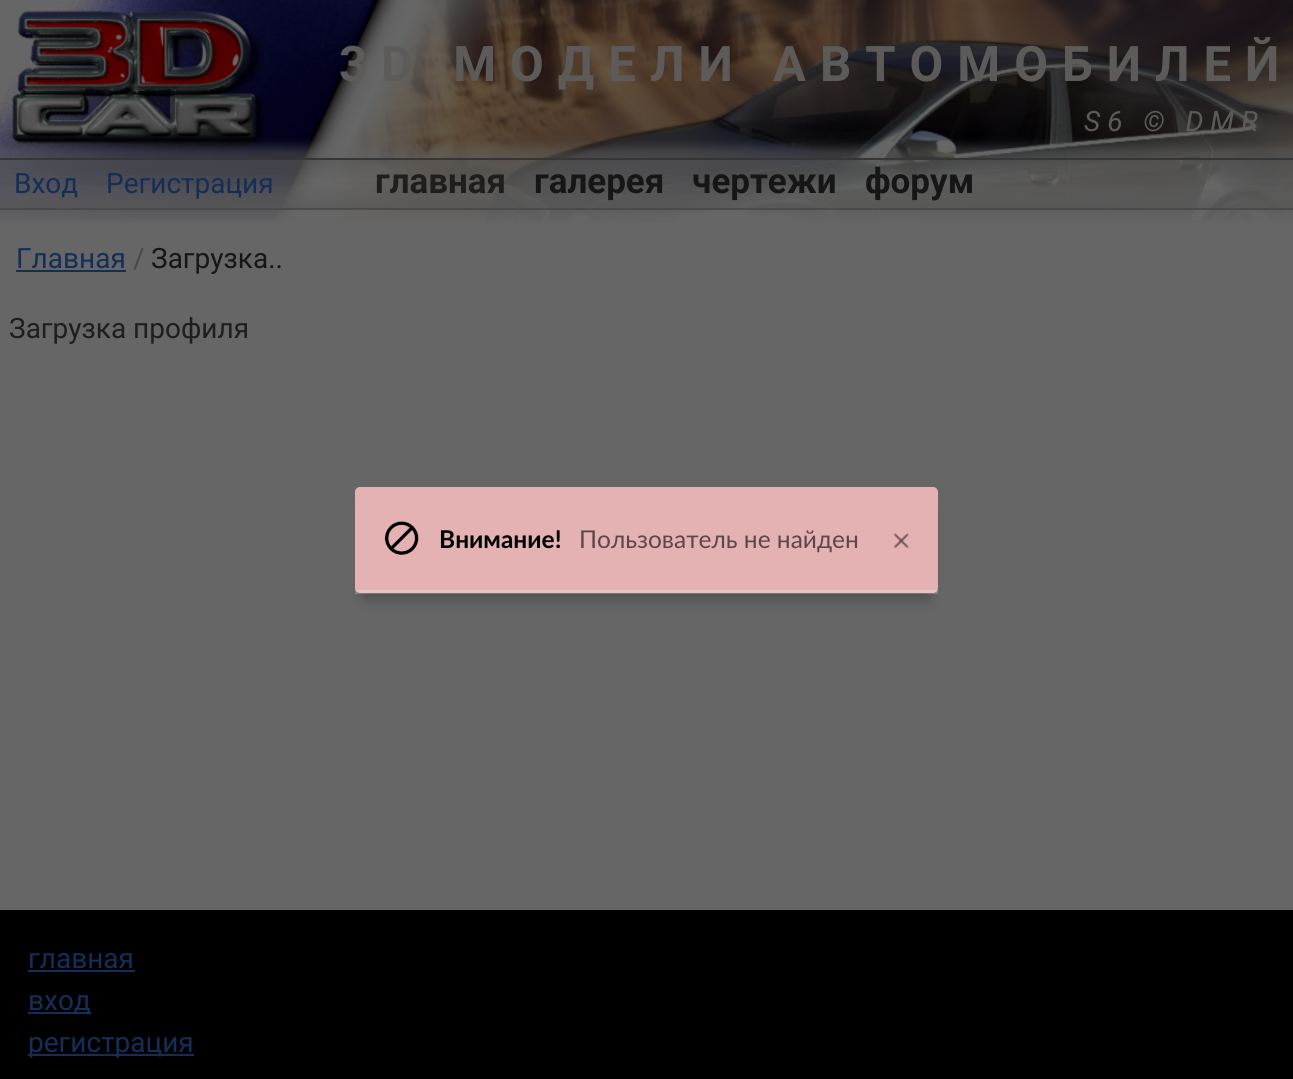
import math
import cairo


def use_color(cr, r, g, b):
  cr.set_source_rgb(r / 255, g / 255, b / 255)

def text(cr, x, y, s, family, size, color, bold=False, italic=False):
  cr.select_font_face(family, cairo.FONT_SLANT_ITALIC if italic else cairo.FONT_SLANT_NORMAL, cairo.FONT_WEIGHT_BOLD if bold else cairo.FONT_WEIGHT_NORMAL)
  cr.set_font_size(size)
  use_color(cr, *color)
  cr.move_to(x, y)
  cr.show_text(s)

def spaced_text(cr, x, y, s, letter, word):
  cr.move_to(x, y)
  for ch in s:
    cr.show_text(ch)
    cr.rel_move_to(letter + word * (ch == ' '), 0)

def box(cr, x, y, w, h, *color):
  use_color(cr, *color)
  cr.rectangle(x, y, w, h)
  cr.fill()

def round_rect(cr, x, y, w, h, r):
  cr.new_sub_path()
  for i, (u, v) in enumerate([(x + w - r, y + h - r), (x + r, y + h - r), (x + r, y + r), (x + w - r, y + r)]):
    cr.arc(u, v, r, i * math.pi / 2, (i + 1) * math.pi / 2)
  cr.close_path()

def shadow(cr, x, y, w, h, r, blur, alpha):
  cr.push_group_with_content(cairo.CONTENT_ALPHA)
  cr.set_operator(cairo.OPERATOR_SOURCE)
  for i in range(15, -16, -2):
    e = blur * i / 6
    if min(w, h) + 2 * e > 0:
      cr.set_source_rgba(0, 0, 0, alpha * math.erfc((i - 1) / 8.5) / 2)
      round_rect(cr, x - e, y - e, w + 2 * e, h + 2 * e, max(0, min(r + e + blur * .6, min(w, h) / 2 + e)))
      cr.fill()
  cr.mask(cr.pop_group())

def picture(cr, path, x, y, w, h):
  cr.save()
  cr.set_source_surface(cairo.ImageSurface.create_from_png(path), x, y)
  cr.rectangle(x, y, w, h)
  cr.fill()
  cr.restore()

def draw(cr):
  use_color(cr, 102, 102, 102)
  cr.paint()
  picture(cr, "img_02.png", 312, 0, 981, 224)
  picture(cr, "img_01.png", 0, 0, 514, 224)
  gradient = cairo.LinearGradient(647, 168, 647, 238)
  gradient.add_color_stop_rgba(0, 0.4, 0.4, 0.4, 0)
  gradient.add_color_stop_rgba(0.8, 0.4, 0.4, 0.4, 1)
  gradient.add_color_stop_rgba(1, 0.4, 0.4, 0.4, 1)
  cr.set_source(gradient)
  cr.rectangle(0, 169, 1293, 55)
  cr.fill()
  cr.save()
  cr.set_fill_rule(cairo.FILL_RULE_EVEN_ODD)
  cr.new_path()
  cr.move_to(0, 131)
  cr.line_to(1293, 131)
  cr.line_to(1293, 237)
  cr.line_to(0, 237)
  cr.close_path()
  cr.move_to(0, 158)
  cr.line_to(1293, 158)
  cr.line_to(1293, 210)
  cr.line_to(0, 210)
  cr.close_path()
  cr.clip()
  use_color(cr, 102, 102, 102)
  shadow(cr, -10, 147, 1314, 74, 0, 5, 0.5)
  cr.restore()
  cr.set_source_rgba(0.4, 0.4, 0.4, 0.5)
  cr.rectangle(0, 160, 1293, 48)
  cr.fill()
  gradient = cairo.LinearGradient(647, 159, 647, 208)
  gradient.add_color_stop_rgba(0, 0.322, 0.322, 0.322, 0.5)
  gradient.add_color_stop_rgba(0.5, 0.4, 0.4, 0.4, 0.2)
  gradient.add_color_stop_rgba(1, 0.322, 0.322, 0.322, 0.5)
  cr.set_source(gradient)
  cr.rectangle(0, 160, 1293, 48)
  cr.fill()
  box(cr, 0, 158, 1293, 2, 54, 54, 54)
  box(cr, 0, 208, 1293, 2, 75, 75, 75)
  box(cr, 16, 270, 110, 2, 20, 46, 88)
  use_color(cr, 229, 178, 180)
  round_rect(cr, 355, 487, 583, 106, 5)
  cr.fill()
  cr.save()
  cr.set_fill_rule(cairo.FILL_RULE_EVEN_ODD)
  cr.new_path()
  cr.move_to(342, 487)
  cr.line_to(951, 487)
  cr.line_to(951, 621)
  cr.line_to(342, 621)
  cr.close_path()
  cr.move_to(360, 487)
  cr.line_to(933, 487)
  cr.curve_to(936, 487, 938, 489, 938, 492)
  cr.line_to(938, 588)
  cr.curve_to(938, 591, 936, 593, 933, 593)
  cr.line_to(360, 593)
  cr.curve_to(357, 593, 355, 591, 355, 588)
  cr.line_to(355, 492)
  cr.curve_to(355, 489, 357, 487, 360, 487)
  cr.close_path()
  cr.clip()
  use_color(cr, 0, 0, 0)
  shadow(cr, 364, 509, 565, 90, 0, 7, 0.25)
  cr.restore()
  picture(cr, "img_03.png", 384, 521, 35, 34)
  picture(cr, "img_04.png", 893, 533, 16, 16)
  cr.set_source_rgba(1, 1, 1, 0.2)
  cr.rectangle(355, 590, 583, 4)
  cr.fill()
  box(cr, 0, 910, 1293, 169, 0, 0, 0)
  box(cr, 28, 970, 107, 2, 20, 46, 88)
  box(cr, 28, 1012, 63, 2, 20, 46, 88)
  box(cr, 28, 1054, 166, 2, 20, 46, 88)
  cr.select_font_face("Roboto", cairo.FONT_SLANT_NORMAL, cairo.FONT_WEIGHT_BOLD)
  cr.set_font_size(49)
  use_color(cr, 93, 91, 90)
  spaced_text(cr, 339, 81, "3D МОДЕЛИ АВТОМОБИЛЕЙ", 14, 0)
  cr.select_font_face("Roboto", cairo.FONT_SLANT_ITALIC)
  cr.set_font_size(28)
  spaced_text(cr, 1084, 131, "S6 © DMR", 7, 0)
  text(cr, 14, 193, "Вход", "Roboto", 28, (20, 46, 88))
  text(cr, 106, 193, "Регистрация", "Roboto", 28, (20, 46, 88))
  text(cr, 375, 193, "главная", "Roboto", 35, (30, 30, 30), bold=True)
  text(cr, 534, 193, "галерея", "Roboto", 35, (22, 22, 22), bold=True)
  text(cr, 692, 193, "чертежи", "Roboto", 35, (22, 22, 22), bold=True)
  text(cr, 865, 193, "форум", "Roboto", 35, (22, 22, 22), bold=True)
  text(cr, 16, 268, "Главная", "Roboto", 28, (20, 46, 88))
  text(cr, 133, 268, "/", "Roboto", 28, (72, 72, 72))
  text(cr, 151, 268, "Загрузка..", "Roboto", 28, (22, 22, 22))
  text(cr, 9, 338, "Загрузка профиля", "Roboto", 28, (30, 30, 30))
  text(cr, 439, 548, "Внимание!", "Lato", 24.5, (0, 0, 0), bold=True)
  text(cr, 579, 548, "Пользователь не найден", "Lato", 24.5, (92, 71, 72))
  text(cr, 28, 968, "главная", "Roboto", 28, (20, 46, 88))
  text(cr, 28, 1010, "вход", "Roboto", 28, (20, 46, 88))
  text(cr, 28, 1052, "регистрация", "Roboto", 28, (20, 46, 88))


surface = cairo.ImageSurface(cairo.FORMAT_RGB24, 1293, 1079)
cr = cairo.Context(surface)
options = cairo.FontOptions()
options.set_hint_metrics(cairo.HINT_METRICS_OFF)
options.set_hint_style(cairo.HINT_STYLE_NONE)
cr.set_font_options(options)
cr.set_miter_limit(4)
draw(cr)
surface.write_to_png("out.png")
